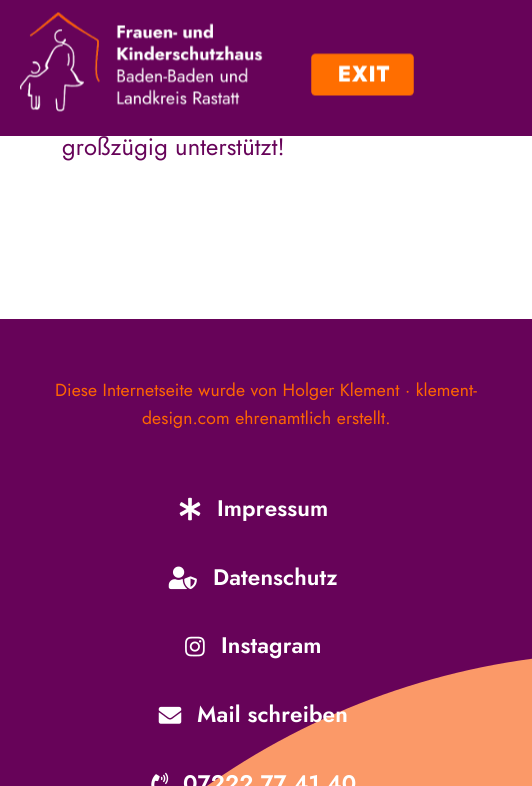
import math
import cairo


def use_color(cr, r, g, b):
  cr.set_source_rgb(r / 255, g / 255, b / 255)

def spaced_text(cr, x, y, s, letter, word):
  cr.move_to(x, y)
  for ch in s:
    cr.show_text(ch)
    cr.rel_move_to(letter + word * (ch == ' '), 0)

def box(cr, x, y, w, h, *color):
  use_color(cr, *color)
  cr.rectangle(x, y, w, h)
  cr.fill()

def picture(cr, path, x, y, w, h):
  cr.save()
  cr.set_source_surface(cairo.ImageSurface.create_from_png(path), x, y)
  cr.rectangle(x, y, w, h)
  cr.fill()
  cr.restore()

def draw(cr):
  use_color(cr, 255, 255, 255)
  cr.paint()
  box(cr, 0, 0, 532, 136, 103, 3, 89)
  picture(cr, "img_01.png", 20, 12, 243, 100)
  picture(cr, "img_02.png", 311, 53, 103, 43)
  box(cr, 0, 319, 532, 467, 103, 3, 89)
  use_color(cr, 251, 153, 104)
  cr.new_path()
  cr.move_to(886, 699)
  cr.curve_to(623, 600, 324, 661, 121, 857)
  cr.line_to(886, 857)
  cr.close_path()
  cr.fill()
  picture(cr, "img_03.png", 179, 497, 22, 24)
  picture(cr, "img_04.png", 168, 566, 29, 24)
  picture(cr, "img_05.png", 185, 636, 20, 21)
  picture(cr, "img_06.png", 158, 706, 24, 18)
  picture(cr, "img_07.png", 151, 772, 18, 14)
  cr.select_font_face("Jost")
  cr.set_font_size(23.75)
  use_color(cr, 103, 3, 89)
  spaced_text(cr, 62, 155, "großzügig unterstützt!", 0.12, 0)
  cr.set_font_size(17.5)
  use_color(cr, 255, 102, 0)
  spaced_text(cr, 55, 396, "Diese Internetseite wurde von Holger Klement · klement-", 0.12, 0)
  spaced_text(cr, 142, 424, "design.com ehrenamtlich erstellt.", 0.12, 0)
  cr.select_font_face("Jost SemiBold")
  cr.set_font_size(22.5)
  use_color(cr, 255, 255, 255)
  spaced_text(cr, 217, 516, "Impressum", 0.12, 0)
  spaced_text(cr, 213, 585, "Datenschutz", 0.12, 0)
  spaced_text(cr, 221, 653, "Instagram", 0.12, 0)
  spaced_text(cr, 197, 722, "Mail schreiben", 0.12, 0)
  spaced_text(cr, 183, 791, "07222 77 41 40", 0.12, 0)


surface = cairo.ImageSurface(cairo.FORMAT_RGB24, 532, 786)
cr = cairo.Context(surface)
options = cairo.FontOptions()
options.set_hint_metrics(cairo.HINT_METRICS_OFF)
options.set_hint_style(cairo.HINT_STYLE_NONE)
cr.set_font_options(options)
cr.set_miter_limit(4)
draw(cr)
surface.write_to_png("out.png")
